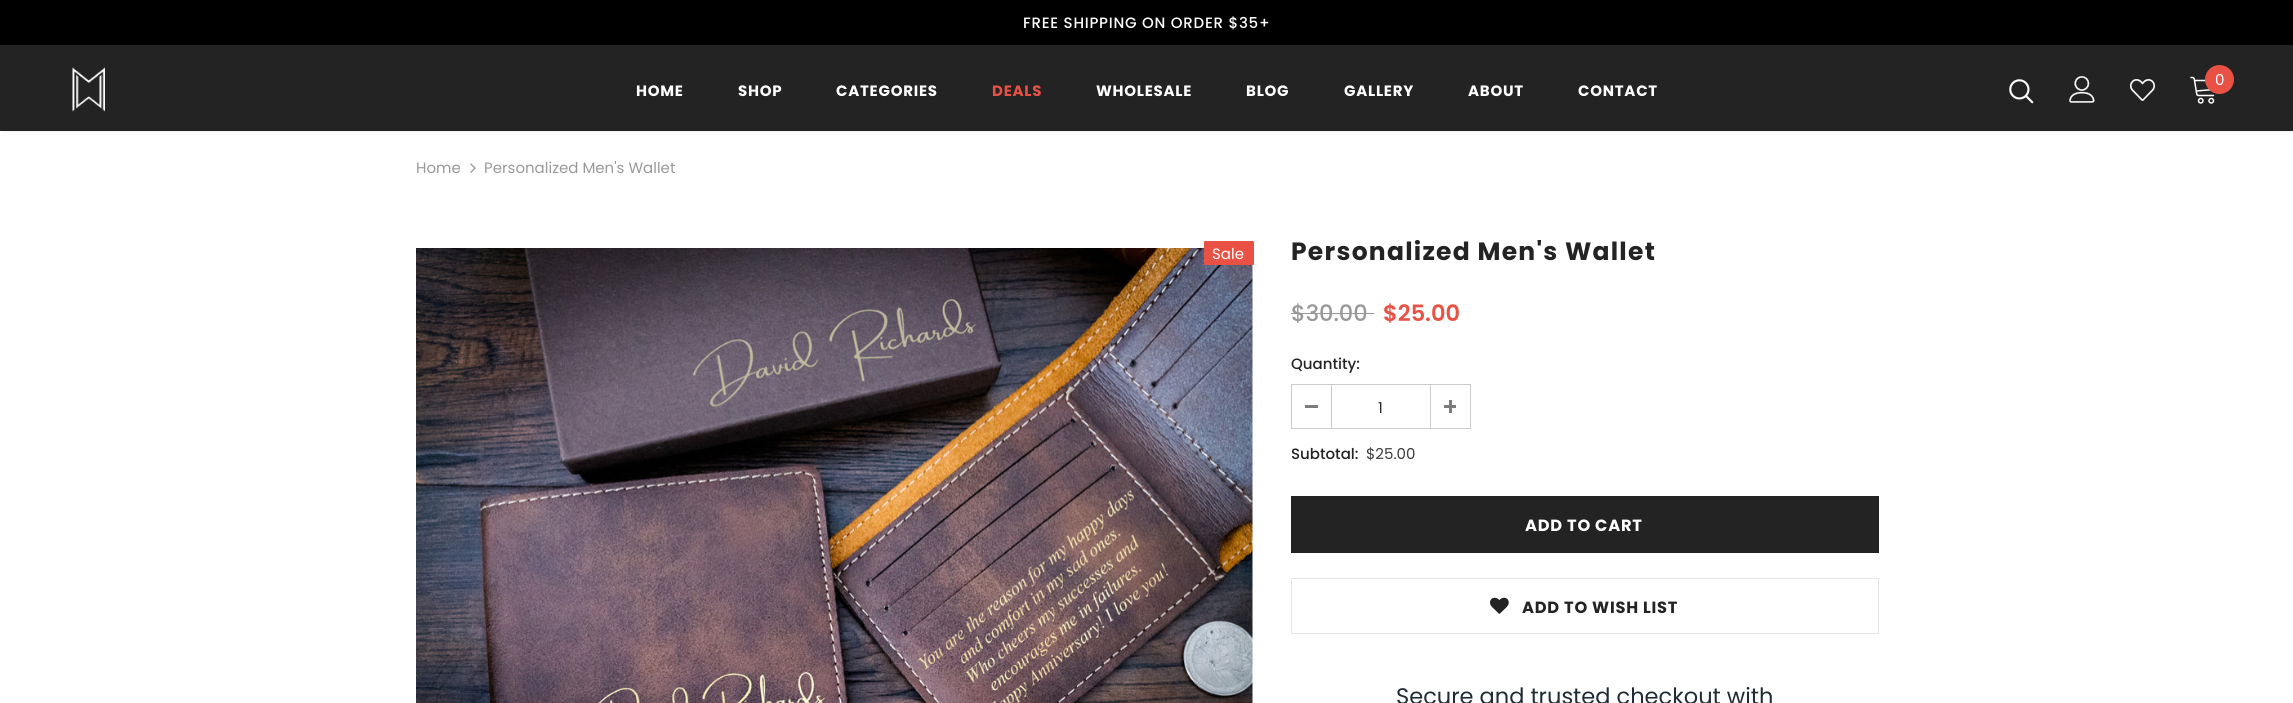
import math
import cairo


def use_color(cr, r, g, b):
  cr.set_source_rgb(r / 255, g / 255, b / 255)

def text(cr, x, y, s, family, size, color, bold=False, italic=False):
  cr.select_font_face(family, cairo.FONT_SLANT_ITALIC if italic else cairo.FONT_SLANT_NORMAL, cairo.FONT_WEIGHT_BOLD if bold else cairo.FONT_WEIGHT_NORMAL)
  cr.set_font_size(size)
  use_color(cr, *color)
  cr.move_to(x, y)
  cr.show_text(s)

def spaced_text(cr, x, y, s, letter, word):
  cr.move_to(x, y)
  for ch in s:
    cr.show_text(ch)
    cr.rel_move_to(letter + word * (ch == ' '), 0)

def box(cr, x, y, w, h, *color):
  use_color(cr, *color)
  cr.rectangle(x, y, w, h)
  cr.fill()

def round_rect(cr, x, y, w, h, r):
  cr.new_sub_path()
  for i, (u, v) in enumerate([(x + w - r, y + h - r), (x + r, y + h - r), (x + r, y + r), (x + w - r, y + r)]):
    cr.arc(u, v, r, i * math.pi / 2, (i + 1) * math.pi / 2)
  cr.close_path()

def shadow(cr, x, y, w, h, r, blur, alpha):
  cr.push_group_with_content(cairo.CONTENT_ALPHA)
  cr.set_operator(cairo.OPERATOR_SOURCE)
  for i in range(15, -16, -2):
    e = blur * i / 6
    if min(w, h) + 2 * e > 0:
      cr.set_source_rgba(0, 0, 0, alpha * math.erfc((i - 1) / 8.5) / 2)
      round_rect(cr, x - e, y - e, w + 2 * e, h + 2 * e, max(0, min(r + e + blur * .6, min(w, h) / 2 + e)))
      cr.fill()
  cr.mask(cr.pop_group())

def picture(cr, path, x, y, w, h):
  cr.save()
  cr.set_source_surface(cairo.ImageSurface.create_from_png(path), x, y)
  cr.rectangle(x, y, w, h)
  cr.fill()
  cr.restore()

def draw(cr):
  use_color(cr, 255, 255, 255)
  cr.paint()
  box(cr, 0, 0, 2293, 45, 0, 0, 0)
  use_color(cr, 0, 0, 0)
  shadow(cr, 4, 53, 2286, 78, 0, 2, 0.1)
  box(cr, 0, 45, 2293, 86, 35, 35, 35)
  picture(cr, "img_01.png", 72, 67, 33, 45)
  picture(cr, "img_02.png", 2009, 79, 25, 25)
  picture(cr, "img_03.png", 2069, 76, 26, 27)
  picture(cr, "img_04.png", 2130, 79, 25, 22)
  picture(cr, "img_05.png", 2190, 76, 25, 28)
  use_color(cr, 233, 81, 68)
  cr.arc(2219.5, 79.5, 14.5, 0, 2 * math.pi)
  cr.fill()
  picture(cr, "img_06.png", 470, 163, 6, 10)
  picture(cr, "img_07.png", 416, 248, 837, 455)
  round_rect(cr, 1204, 241, 50, 24, 1)
  cr.fill()
  cr.rectangle(1291.5, 384.5, 179, 44)
  use_color(cr, 203, 203, 203)
  cr.set_line_width(1)
  cr.stroke()
  box(cr, 1331, 385, 1, 43, 203, 203, 203)
  box(cr, 1305, 405, 13, 3, 123, 123, 123)
  box(cr, 1430, 385, 1, 43, 203, 203, 203)
  box(cr, 1444, 405, 12, 3, 123, 123, 123)
  box(cr, 1449, 400, 3, 13, 123, 123, 123)
  box(cr, 1291, 496, 588, 57, 35, 35, 35)
  cr.rectangle(1291.5, 578.5, 587, 55)
  use_color(cr, 230, 230, 230)
  cr.stroke()
  picture(cr, "img_08.png", 1490, 597, 19, 17)
  cr.select_font_face("Poppins Medium")
  cr.set_font_size(15)
  use_color(cr, 255, 255, 255)
  spaced_text(cr, 1023, 28, "FREE SHIPPING ON ORDER $35+", 0.75, 0)
  text(cr, 2215, 85, "0", "Poppins", 15, (255, 255, 255))
  cr.select_font_face("Poppins", cairo.FONT_SLANT_NORMAL, cairo.FONT_WEIGHT_BOLD)
  spaced_text(cr, 636, 96, "HOME", 0.75, 0)
  spaced_text(cr, 738, 96, "SHOP", 0.75, 0)
  spaced_text(cr, 836, 96, "CATEGORIES", 0.75, 0)
  use_color(cr, 233, 81, 68)
  spaced_text(cr, 992, 96, "DEALS", 0.75, 0)
  use_color(cr, 255, 255, 255)
  spaced_text(cr, 1096, 96, "WHOLESALE", 0.75, 0)
  spaced_text(cr, 1246, 96, "BLOG", 0.75, 0)
  spaced_text(cr, 1344, 96, "GALLERY", 0.75, 0)
  spaced_text(cr, 1468, 96, "ABOUT", 0.75, 0)
  spaced_text(cr, 1578, 96, "CONTACT", 0.75, 0)
  text(cr, 416, 173, "Home", "Poppins", 15, (153, 153, 153))
  text(cr, 484, 173, "Personalized Men's Wallet", "Poppins", 15, (153, 153, 153))
  text(cr, 1212, 259, "Sale", "Poppins", 15, (255, 255, 255))
  cr.select_font_face("Poppins", cairo.FONT_SLANT_NORMAL, cairo.FONT_WEIGHT_BOLD)
  cr.set_font_size(25)
  use_color(cr, 35, 35, 35)
  spaced_text(cr, 1291, 260, "Personalized Men's Wallet", 1.25, 0)
  text(cr, 1291, 321, "$30.00", "Poppins Medium", 22.5, (153, 153, 153))
  box(cr, 1291, 313, 83, 1, 150, 150, 150)
  text(cr, 1383, 321, "$25.00", "Poppins SemiBold", 22.5, (233, 81, 68))
  text(cr, 1291, 369, "Quantity:", "Poppins Medium", 15, (35, 35, 35))
  text(cr, 1378, 413, "1", "Poppins", 15, (45, 45, 45))
  text(cr, 1291, 459, "Subtotal:", "Poppins Medium", 15, (35, 35, 35))
  text(cr, 1366, 459, "$25.00", "Poppins", 15, (60, 60, 60))
  cr.select_font_face("Poppins", cairo.FONT_SLANT_NORMAL, cairo.FONT_WEIGHT_BOLD)
  cr.set_font_size(16.25)
  use_color(cr, 255, 255, 255)
  spaced_text(cr, 1525, 531, "ADD TO CART", 0.75, 0)
  use_color(cr, 35, 35, 35)
  spaced_text(cr, 1522, 613, "ADD TO WISH LIST", 0.75, 0)
  text(cr, 1396, 704, "Secure and trusted checkout with", "Poppins", 22.5, (33, 43, 53))


surface = cairo.ImageSurface(cairo.FORMAT_RGB24, 2293, 703)
cr = cairo.Context(surface)
options = cairo.FontOptions()
options.set_hint_metrics(cairo.HINT_METRICS_OFF)
options.set_hint_style(cairo.HINT_STYLE_NONE)
cr.set_font_options(options)
cr.set_miter_limit(4)
draw(cr)
surface.write_to_png("out.png")
